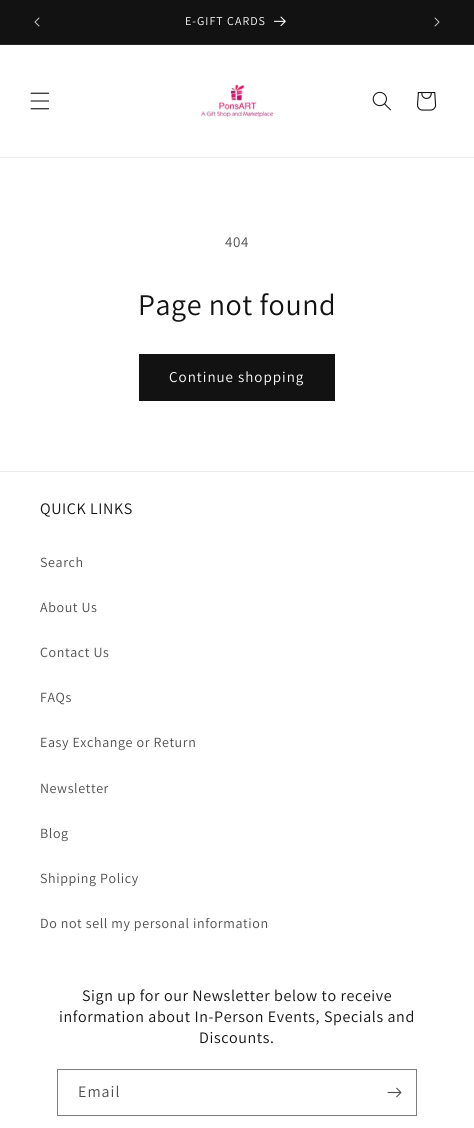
import math
import cairo


def use_color(cr, r, g, b):
  cr.set_source_rgb(r / 255, g / 255, b / 255)

def spaced_text(cr, x, y, s, letter, word):
  cr.move_to(x, y)
  for ch in s:
    cr.show_text(ch)
    cr.rel_move_to(letter + word * (ch == ' '), 0)

def box(cr, x, y, w, h, *color):
  use_color(cr, *color)
  cr.rectangle(x, y, w, h)
  cr.fill()

def picture(cr, path, x, y, w, h):
  cr.save()
  cr.set_source_surface(cairo.ImageSurface.create_from_png(path), x, y)
  cr.rectangle(x, y, w, h)
  cr.fill()
  cr.restore()

def draw(cr):
  use_color(cr, 255, 255, 255)
  cr.paint()
  box(cr, 0, 0, 474, 44, 18, 18, 18)
  box(cr, 0, 44, 474, 1, 37, 37, 37)
  picture(cr, "img_01.png", 34, 17, 6, 10)
  picture(cr, "img_02.png", 274, 16, 12, 10)
  picture(cr, "img_03.png", 434, 17, 6, 10)
  box(cr, 0, 157, 474, 1, 236, 236, 236)
  picture(cr, "img_04.png", 30, 92, 20, 18)
  picture(cr, "img_05.png", 200, 84, 74, 34)
  picture(cr, "img_06.png", 372, 91, 19, 20)
  picture(cr, "img_07.png", 417, 92, 20, 19)
  box(cr, 139, 354, 196, 47, 18, 18, 18)
  box(cr, 0, 471, 474, 1, 236, 236, 236)
  cr.rectangle(57.5, 1069.5, 359, 46)
  use_color(cr, 125, 125, 125)
  cr.set_line_width(1)
  cr.stroke()
  picture(cr, "img_08.png", 387, 1087, 15, 11)
  cr.select_font_face("Assistant")
  cr.set_font_size(12)
  use_color(cr, 255, 255, 255)
  spaced_text(cr, 185, 25, "E-GIFT CARDS", 1, 0)
  cr.set_font_size(15)
  use_color(cr, 77, 77, 77)
  spaced_text(cr, 225, 247, "404", 0.6, 0)
  cr.set_font_size(30)
  use_color(cr, 18, 18, 18)
  spaced_text(cr, 138, 315, "Page not found", 0.6, 0)
  cr.set_font_size(15)
  use_color(cr, 255, 255, 255)
  spaced_text(cr, 169, 382, "Continue shopping", 1, 0)
  cr.set_font_size(16)
  use_color(cr, 18, 18, 18)
  spaced_text(cr, 40, 514, "QUICK LINKS", 0.6, 0)
  cr.set_font_size(14)
  use_color(cr, 77, 77, 77)
  spaced_text(cr, 40, 567, "Search", 0.6, 0)
  spaced_text(cr, 40, 612, "About Us", 0.6, 0)
  spaced_text(cr, 40, 657, "Contact Us", 0.6, 0)
  spaced_text(cr, 40, 702, "FAQs", 0.6, 0)
  spaced_text(cr, 40, 747, "Easy Exchange or Return", 0.6, 0)
  spaced_text(cr, 40, 793, "Newsletter", 0.6, 0)
  spaced_text(cr, 40, 838, "Blog", 0.6, 0)
  spaced_text(cr, 40, 883, "Shipping Policy", 0.6, 0)
  spaced_text(cr, 40, 928, "Do not sell my personal information", 0.6, 0)
  cr.set_font_size(16)
  use_color(cr, 18, 18, 18)
  spaced_text(cr, 82, 1001, "Sign up for our Newsletter below to receive", 0.6, 0)
  spaced_text(cr, 59, 1022, "information about In-Person Events, Specials and", 0.6, 0)
  spaced_text(cr, 199, 1043, "Discounts.", 0.6, 0)
  use_color(cr, 77, 77, 77)
  spaced_text(cr, 78, 1097, "Email", 1, 0)


surface = cairo.ImageSurface(cairo.FORMAT_RGB24, 474, 1128)
cr = cairo.Context(surface)
options = cairo.FontOptions()
options.set_hint_metrics(cairo.HINT_METRICS_OFF)
options.set_hint_style(cairo.HINT_STYLE_NONE)
cr.set_font_options(options)
cr.set_miter_limit(4)
draw(cr)
surface.write_to_png("out.png")
